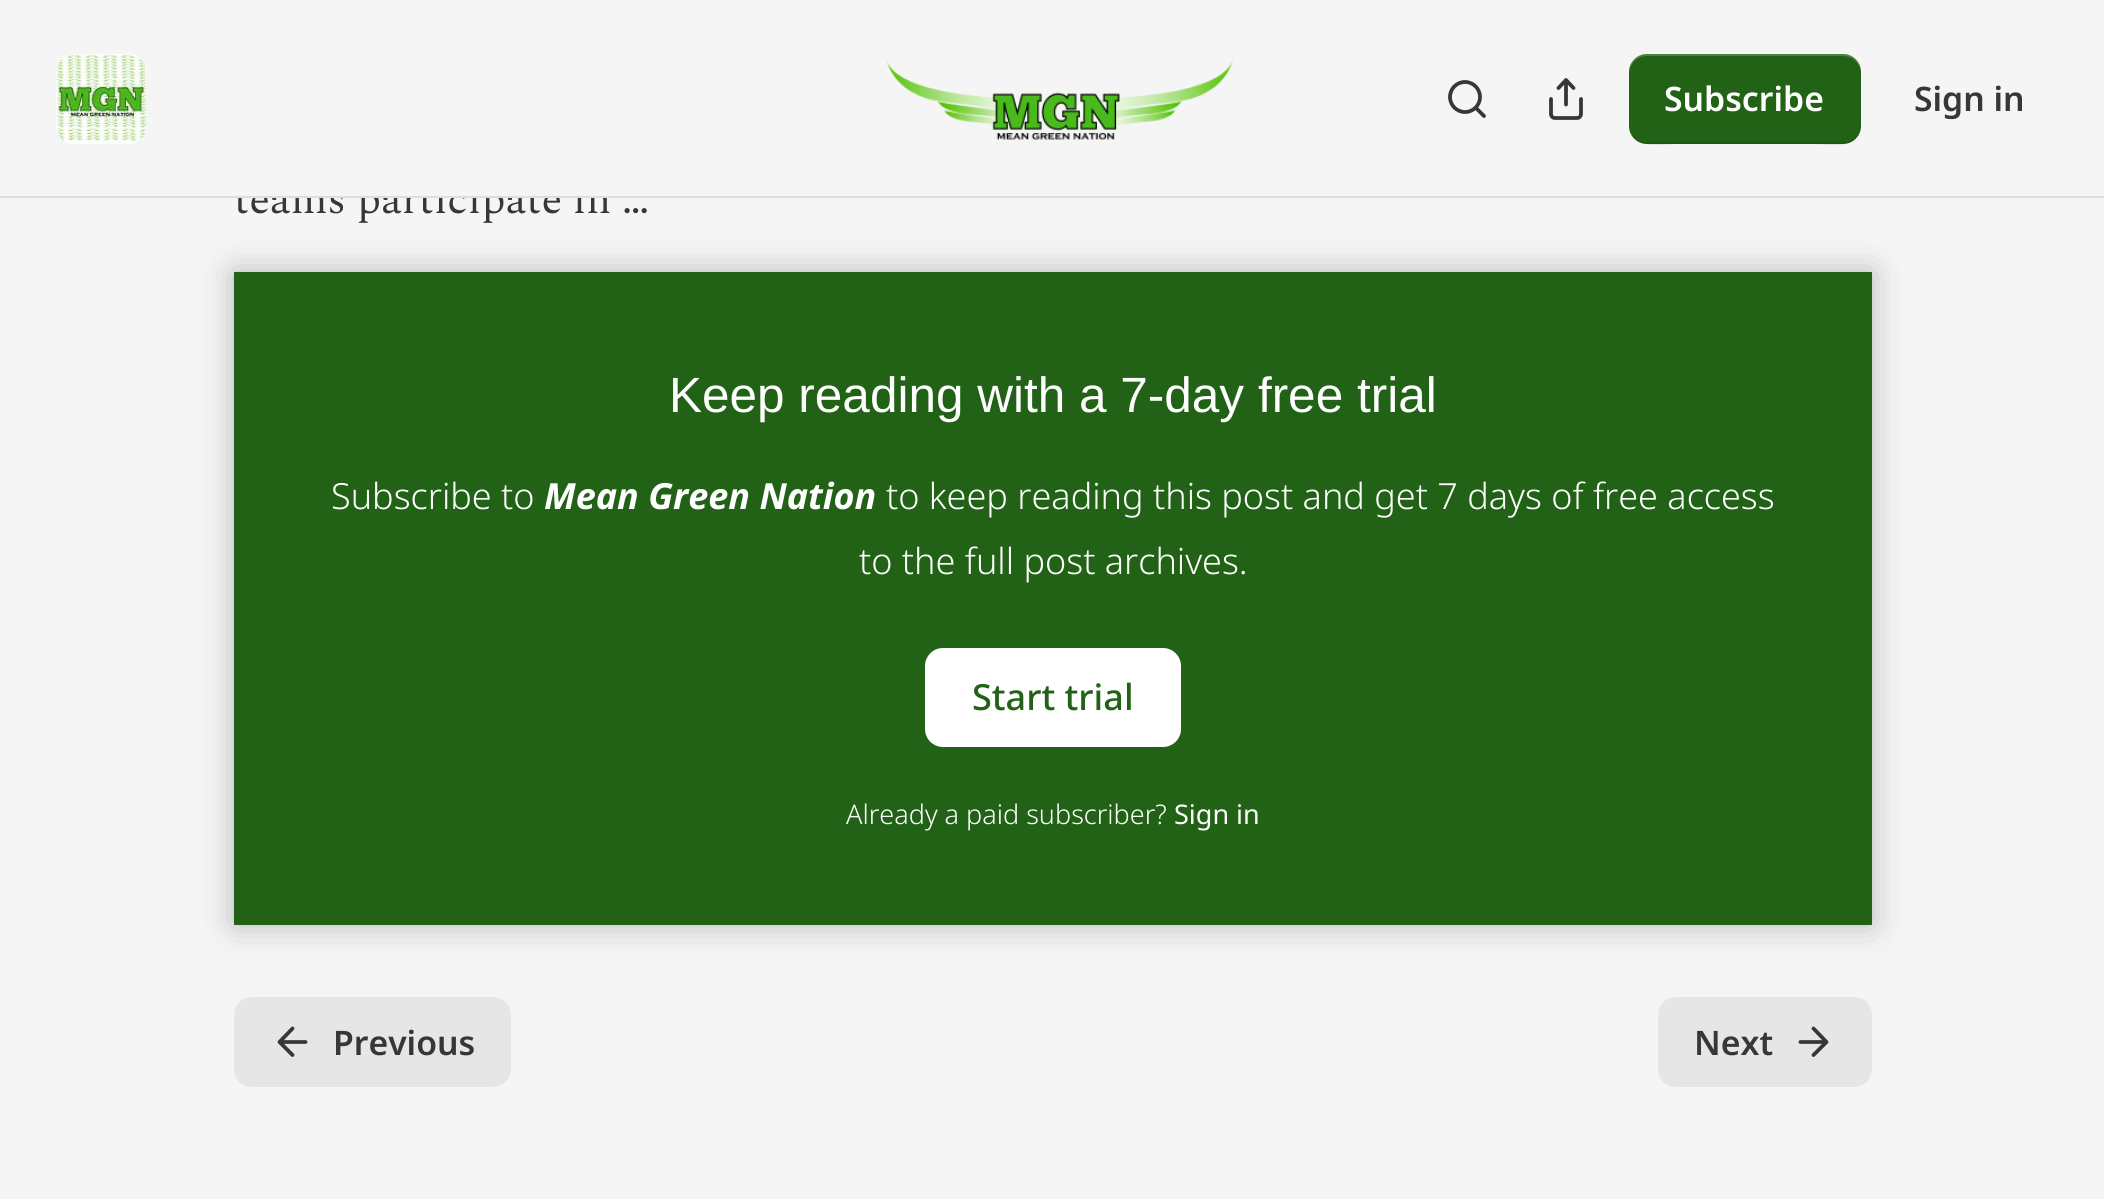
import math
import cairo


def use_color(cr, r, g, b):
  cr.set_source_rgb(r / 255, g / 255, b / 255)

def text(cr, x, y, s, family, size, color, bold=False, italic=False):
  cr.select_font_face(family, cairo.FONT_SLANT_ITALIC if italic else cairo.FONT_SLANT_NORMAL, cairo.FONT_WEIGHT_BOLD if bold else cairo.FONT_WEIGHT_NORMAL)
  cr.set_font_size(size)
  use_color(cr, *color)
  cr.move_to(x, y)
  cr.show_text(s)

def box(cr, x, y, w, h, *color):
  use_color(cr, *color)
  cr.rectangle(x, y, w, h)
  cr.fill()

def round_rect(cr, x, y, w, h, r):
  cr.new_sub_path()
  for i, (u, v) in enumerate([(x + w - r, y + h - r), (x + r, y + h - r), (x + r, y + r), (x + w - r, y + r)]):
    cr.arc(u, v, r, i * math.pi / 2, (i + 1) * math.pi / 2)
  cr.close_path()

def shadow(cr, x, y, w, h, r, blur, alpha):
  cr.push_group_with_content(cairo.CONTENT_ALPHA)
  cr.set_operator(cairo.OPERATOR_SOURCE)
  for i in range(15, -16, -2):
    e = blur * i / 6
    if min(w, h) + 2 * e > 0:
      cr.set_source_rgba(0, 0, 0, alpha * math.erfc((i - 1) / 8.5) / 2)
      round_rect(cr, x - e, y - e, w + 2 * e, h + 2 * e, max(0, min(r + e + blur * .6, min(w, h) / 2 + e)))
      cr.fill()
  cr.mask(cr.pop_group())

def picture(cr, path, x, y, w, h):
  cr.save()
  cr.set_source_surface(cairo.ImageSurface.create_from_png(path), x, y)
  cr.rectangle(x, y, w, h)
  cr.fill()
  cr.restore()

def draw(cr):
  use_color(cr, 245, 245, 245)
  cr.paint()
  use_color(cr, 255, 255, 255)
  round_rect(cr, 56, 54, 90, 90, 18)
  cr.fill()
  picture(cr, "img_01.png", 56, 54, 90, 90)
  picture(cr, "img_02.png", 886, 59, 347, 81)
  cr.arc(1465, 97, 15, 0, 2 * math.pi)
  use_color(cr, 54, 55, 55)
  cr.set_line_width(3.8)
  cr.stroke()
  cr.new_path()
  cr.move_to(1484, 116)
  cr.line_to(1476, 108)
  cr.set_line_cap(cairo.LINE_CAP_ROUND)
  cr.set_line_join(cairo.LINE_JOIN_ROUND)
  cr.stroke()
  cr.new_path()
  cr.move_to(1551, 99)
  cr.line_to(1551, 114)
  cr.curve_to(1551, 116, 1552.5, 118, 1555, 118)
  cr.line_to(1577, 118)
  cr.curve_to(1579.5, 118, 1581, 116, 1581, 114)
  cr.line_to(1581, 99)
  cr.move_to(1573.5, 88)
  cr.line_to(1566, 80)
  cr.line_to(1558.5, 88)
  cr.move_to(1566, 80)
  cr.line_to(1566, 104.5)
  cr.stroke()
  use_color(cr, 34, 98, 22)
  round_rect(cr, 1629, 54, 232, 90, 18)
  cr.fill()
  cr.set_source_rgba(0, 0, 0, 0.1)
  cr.new_path()
  cr.move_to(1629, 124)
  cr.curve_to(1629, 152, 1662, 144, 1680, 144)
  cr.line_to(1810, 144)
  cr.curve_to(1828, 144, 1861, 152, 1861, 124)
  cr.curve_to(1861, 134, 1853, 142, 1843, 142)
  cr.line_to(1647, 142)
  cr.curve_to(1637, 142, 1629, 134, 1629, 124)
  cr.close_path()
  cr.fill()
  cr.set_source_rgba(1, 1, 1, 0.2)
  cr.new_path()
  cr.move_to(1647, 56)
  cr.line_to(1843, 56)
  cr.curve_to(1853, 56, 1861, 64, 1861, 74)
  cr.curve_to(1861, 46, 1828, 54, 1810, 54)
  cr.line_to(1680, 54)
  cr.curve_to(1662, 54, 1629, 46, 1629, 74)
  cr.curve_to(1629, 64, 1637, 56, 1647, 56)
  cr.close_path()
  cr.fill()
  box(cr, 234, 272, 1638, 653, 34, 98, 22)
  use_color(cr, 255, 255, 255)
  round_rect(cr, 926, 649, 254, 97, 17)
  cr.fill_preserve()
  cr.set_line_width(2)
  cr.set_line_cap(cairo.LINE_CAP_BUTT)
  cr.set_line_join(cairo.LINE_JOIN_MITER)
  cr.stroke()
  cr.save()
  cr.set_fill_rule(cairo.FILL_RULE_EVEN_ODD)
  cr.new_path()
  cr.move_to(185, 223)
  cr.line_to(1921, 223)
  cr.line_to(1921, 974)
  cr.line_to(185, 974)
  cr.close_path()
  cr.move_to(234, 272)
  cr.line_to(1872, 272)
  cr.line_to(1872, 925)
  cr.line_to(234, 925)
  cr.close_path()
  cr.clip()
  use_color(cr, 0, 0, 0)
  shadow(cr, 234, 272, 1638, 653, 0, 16, 0.25)
  cr.restore()
  use_color(cr, 230, 230, 230)
  round_rect(cr, 234, 997, 277, 90, 18)
  cr.fill()
  cr.new_path()
  cr.move_to(292.5, 1055)
  cr.line_to(279.5, 1042)
  cr.line_to(292.5, 1028.5)
  cr.move_to(305.5, 1042)
  cr.line_to(279.5, 1042)
  use_color(cr, 54, 55, 55)
  cr.set_line_width(3.8)
  cr.set_line_cap(cairo.LINE_CAP_ROUND)
  cr.set_line_join(cairo.LINE_JOIN_ROUND)
  cr.stroke()
  use_color(cr, 230, 230, 230)
  round_rect(cr, 1658, 997, 214, 90, 18)
  cr.fill()
  cr.new_path()
  cr.move_to(1800.5, 1042)
  cr.line_to(1826.5, 1042)
  cr.move_to(1813.5, 1028.5)
  cr.line_to(1826.5, 1042)
  cr.line_to(1813.5, 1055)
  use_color(cr, 54, 55, 55)
  cr.stroke()
  text(cr, 1664, 111, "Subscribe", "Noto Sans SemiBold", 33.75, (255, 255, 255))
  text(cr, 1914, 111, "Sign in", "Noto Sans SemiBold", 33.75, (54, 55, 55))
  text(cr, 234, 213, "teams participate in …", "Spectral", 42.75, (54, 55, 55))
  box(cr, 0, 196, 2104, 2, 221, 221, 221)
  box(cr, 234, 183, 373, 13, 245, 245, 245)
  text(cr, 669, 412, "Keep reading with a 7-day free trial", "Liberation Sans", 49.5, (255, 255, 255))
  text(cr, 331, 509, "Subscribe to", "Noto Sans Light", 36, (255, 255, 255))
  text(cr, 544, 509, "Mean Green Nation", "Noto Sans", 36, (255, 255, 255), bold=True, italic=True)
  text(cr, 886, 509, "to keep reading this post and get 7 days of free access", "Noto Sans Light", 36, (255, 255, 255))
  text(cr, 859, 574, "to the full post archives.", "Noto Sans Light", 36, (255, 255, 255))
  text(cr, 972, 710, "Start trial", "Noto Sans Medium", 36, (34, 98, 22))
  text(cr, 846, 824, "Already a paid subscriber?", "Noto Sans Light", 27, (255, 255, 255))
  text(cr, 1174, 824, "Sign in", "Noto Sans", 27, (255, 255, 255))
  text(cr, 333, 1055, "Previous", "Noto Sans SemiBold", 33.75, (54, 55, 55))
  text(cr, 1694, 1055, "Next", "Noto Sans SemiBold", 33.75, (54, 55, 55))


surface = cairo.ImageSurface(cairo.FORMAT_RGB24, 2104, 1199)
cr = cairo.Context(surface)
options = cairo.FontOptions()
options.set_hint_metrics(cairo.HINT_METRICS_OFF)
options.set_hint_style(cairo.HINT_STYLE_NONE)
cr.set_font_options(options)
cr.set_miter_limit(4)
draw(cr)
surface.write_to_png("out.png")
